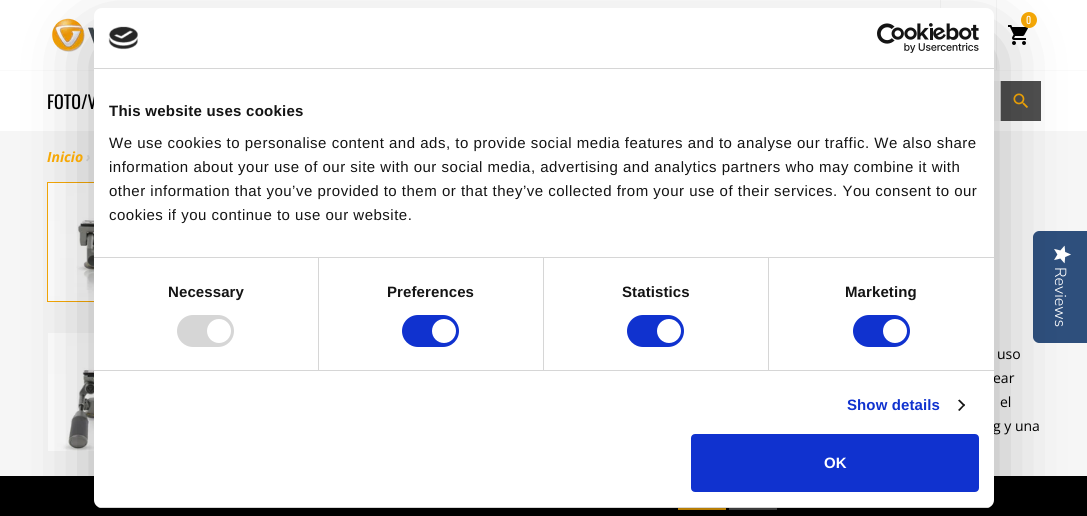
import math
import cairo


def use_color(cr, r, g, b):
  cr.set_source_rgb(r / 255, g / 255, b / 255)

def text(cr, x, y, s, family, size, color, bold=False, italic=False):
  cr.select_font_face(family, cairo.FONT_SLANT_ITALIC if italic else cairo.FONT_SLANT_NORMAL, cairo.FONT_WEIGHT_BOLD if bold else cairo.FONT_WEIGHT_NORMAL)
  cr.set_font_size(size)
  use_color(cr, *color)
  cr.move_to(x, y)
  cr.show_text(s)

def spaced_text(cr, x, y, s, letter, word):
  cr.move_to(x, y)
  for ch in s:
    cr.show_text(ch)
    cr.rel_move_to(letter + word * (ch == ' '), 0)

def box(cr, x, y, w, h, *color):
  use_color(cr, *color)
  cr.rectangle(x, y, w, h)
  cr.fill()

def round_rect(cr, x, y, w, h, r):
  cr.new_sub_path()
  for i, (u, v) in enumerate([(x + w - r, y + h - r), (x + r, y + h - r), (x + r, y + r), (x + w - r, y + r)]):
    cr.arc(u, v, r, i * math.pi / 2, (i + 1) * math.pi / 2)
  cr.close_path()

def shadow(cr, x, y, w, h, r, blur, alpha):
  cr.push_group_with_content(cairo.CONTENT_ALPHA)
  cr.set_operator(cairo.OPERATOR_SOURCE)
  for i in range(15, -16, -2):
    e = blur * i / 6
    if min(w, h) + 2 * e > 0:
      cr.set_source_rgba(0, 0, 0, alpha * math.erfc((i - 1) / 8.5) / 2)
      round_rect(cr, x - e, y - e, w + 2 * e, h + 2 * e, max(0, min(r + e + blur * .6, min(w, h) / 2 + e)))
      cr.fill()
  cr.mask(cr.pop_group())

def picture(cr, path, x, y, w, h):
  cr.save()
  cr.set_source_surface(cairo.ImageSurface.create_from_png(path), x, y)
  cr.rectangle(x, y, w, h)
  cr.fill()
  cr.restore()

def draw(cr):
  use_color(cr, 246, 246, 246)
  cr.paint()
  box(cr, 0, 0, 1087, 131, 255, 255, 255)
  box(cr, 0, 70, 1087, 1, 250, 250, 250)
  picture(cr, "img_01.png", 52, 18, 42, 34)
  box(cr, 940, 0, 1, 8, 246, 246, 246)
  box(cr, 996, 0, 1, 70, 246, 246, 246)
  picture(cr, "img_02.png", 1008, 25, 20, 20)
  use_color(cr, 246, 168, 6)
  cr.arc(1029, 20, 8, 0, 2 * math.pi)
  cr.fill()
  box(cr, 994, 81, 6, 40, 246, 246, 246)
  box(cr, 1000, 81, 1, 40, 195, 195, 195)
  box(cr, 1001, 81, 40, 40, 79, 79, 79)
  picture(cr, "img_03.png", 1013, 93, 15, 15)
  cr.rectangle(47.5, 182.5, 119, 119)
  use_color(cr, 246, 168, 6)
  cr.set_line_width(1)
  cr.stroke()
  picture(cr, "img_04.png", 48, 183, 46, 118)
  picture(cr, "img_05.png", 48, 333, 46, 118)
  box(cr, 0, 476, 1087, 40, 0, 0, 0)
  box(cr, 678, 508, 48, 2, 246, 168, 6)
  box(cr, 729, 508, 48, 2, 79, 79, 79)
  use_color(cr, 46, 79, 124)
  cr.new_path()
  cr.move_to(1087, 231)
  cr.line_to(1087, 343)
  cr.line_to(1039, 343)
  cr.curve_to(1036, 343, 1033, 340, 1033, 337)
  cr.line_to(1033, 237)
  cr.curve_to(1033, 234, 1036, 231, 1039, 231)
  cr.close_path()
  cr.fill()
  picture(cr, "img_08.png", 1054, 245, 17, 19)
  use_color(cr, 0, 0, 0)
  shadow(cr, 94, 40, 900, 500, 8, 34, 0.3)
  text(cr, 1026, 24, "0", "Oswald", 10, (255, 255, 255))
  text(cr, 47, 109, "FOTO/V", "Oswald", 18, (0, 0, 0))
  text(cr, 47, 162, "Inicio", "Open Sans", 14, (246, 168, 6), bold=True, italic=True)
  text(cr, 86, 162, "›", "Open Sans", 14, (195, 195, 195), bold=True, italic=True)
  text(cr, 997, 359, "uso", "Open Sans", 14, (0, 0, 0))
  text(cr, 993, 383, "ear", "Open Sans", 14, (0, 0, 0))
  text(cr, 1000, 407, "el", "Open Sans", 14, (0, 0, 0))
  text(cr, 993, 431, "g y una", "Open Sans", 14, (0, 0, 0))
  use_color(cr, 255, 255, 255)
  round_rect(cr, 94, 8, 900, 500, 8)
  cr.fill()
  box(cr, 94, 68, 900, 1, 214, 214, 214)
  picture(cr, "img_06.png", 108, 26, 30, 24)
  picture(cr, "img_07.png", 877, 23, 102, 30)
  box(cr, 94, 257, 900, 1, 214, 214, 214)
  cr.select_font_face("Liberation Sans", cairo.FONT_SLANT_NORMAL, cairo.FONT_WEIGHT_BOLD)
  cr.set_font_size(15)
  use_color(cr, 20, 20, 20)
  spaced_text(cr, 109, 116, "This website uses cookies", 0.25, 0)
  cr.select_font_face("Liberation Sans")
  spaced_text(cr, 109, 148, "We use cookies to personalise content and ads, to provide social media features and to analyse our traffic. We also share", 0.5, 0)
  spaced_text(cr, 109, 172, "information about your use of our site with our social media, advertising and analytics partners who may combine it with", 0.5, 0)
  spaced_text(cr, 109, 196, "other information that you’ve provided to them or that they’ve collected from your use of their services. You consent to our", 0.5, 0)
  spaced_text(cr, 109, 220, "cookies if you continue to use our website.", 0.5, 0)
  box(cr, 94, 370, 900, 1, 214, 214, 214)
  box(cr, 318, 258, 1, 112, 214, 214, 214)
  cr.select_font_face("Liberation Sans", cairo.FONT_SLANT_NORMAL, cairo.FONT_WEIGHT_BOLD)
  use_color(cr, 20, 20, 20)
  spaced_text(cr, 168, 297, "Necessary", 0.1, 0)
  use_color(cr, 214, 214, 214)
  round_rect(cr, 177, 315, 57, 32, 16)
  cr.fill()
  use_color(cr, 255, 255, 255)
  cr.arc(219, 331, 12, 0, 2 * math.pi)
  cr.fill()
  box(cr, 543, 258, 1, 112, 214, 214, 214)
  use_color(cr, 20, 20, 20)
  spaced_text(cr, 387, 297, "Preferences", 0.1, 0)
  use_color(cr, 16, 50, 207)
  round_rect(cr, 402, 315, 57, 32, 16)
  cr.fill()
  use_color(cr, 255, 255, 255)
  cr.arc(444, 331, 12, 0, 2 * math.pi)
  cr.fill()
  box(cr, 768, 258, 1, 112, 214, 214, 214)
  use_color(cr, 20, 20, 20)
  spaced_text(cr, 622, 297, "Statistics", 0.1, 0)
  use_color(cr, 16, 50, 207)
  round_rect(cr, 627, 315, 57, 32, 16)
  cr.fill()
  use_color(cr, 255, 255, 255)
  cr.arc(669, 331, 12, 0, 2 * math.pi)
  cr.fill()
  use_color(cr, 20, 20, 20)
  spaced_text(cr, 845, 297, "Marketing", 0.1, 0)
  use_color(cr, 16, 50, 207)
  round_rect(cr, 853, 315, 57, 32, 16)
  cr.fill()
  use_color(cr, 255, 255, 255)
  cr.arc(895, 331, 12, 0, 2 * math.pi)
  cr.fill()
  use_color(cr, 16, 50, 207)
  spaced_text(cr, 847, 410, "Show details", 0.1, 0)
  use_color(cr, 20, 20, 20)
  cr.new_path()
  cr.move_to(959.5, 399.5)
  cr.line_to(965, 405)
  cr.line_to(964, 406.5)
  cr.line_to(958, 400.5)
  cr.close_path()
  cr.fill()
  cr.new_path()
  cr.move_to(964, 404)
  cr.line_to(965, 405)
  cr.line_to(959.5, 411)
  cr.line_to(958, 410)
  cr.close_path()
  cr.fill()
  cr.save()
  round_rect(cr, 94, 8, 900, 500, 8)
  cr.clip()
  box(cr, 94, 507, 900, 1, 214, 214, 214)
  cr.restore()
  use_color(cr, 16, 50, 207)
  round_rect(cr, 692, 435, 286, 56, 3)
  cr.fill_preserve()
  cr.set_line_width(2)
  cr.stroke()
  text(cr, 824, 468, "OK", "Liberation Sans", 15, (255, 255, 255), bold=True)
  cr.save()
  cr.translate(1055, 267)
  cr.rotate(90 * math.pi / 180)
  text(cr, 0, 0, "Reviews", "Nunito Sans Light", 16, (255, 255, 255))
  cr.restore()


surface = cairo.ImageSurface(cairo.FORMAT_RGB24, 1087, 516)
cr = cairo.Context(surface)
options = cairo.FontOptions()
options.set_hint_metrics(cairo.HINT_METRICS_OFF)
options.set_hint_style(cairo.HINT_STYLE_NONE)
cr.set_font_options(options)
cr.set_miter_limit(4)
draw(cr)
surface.write_to_png("out.png")
